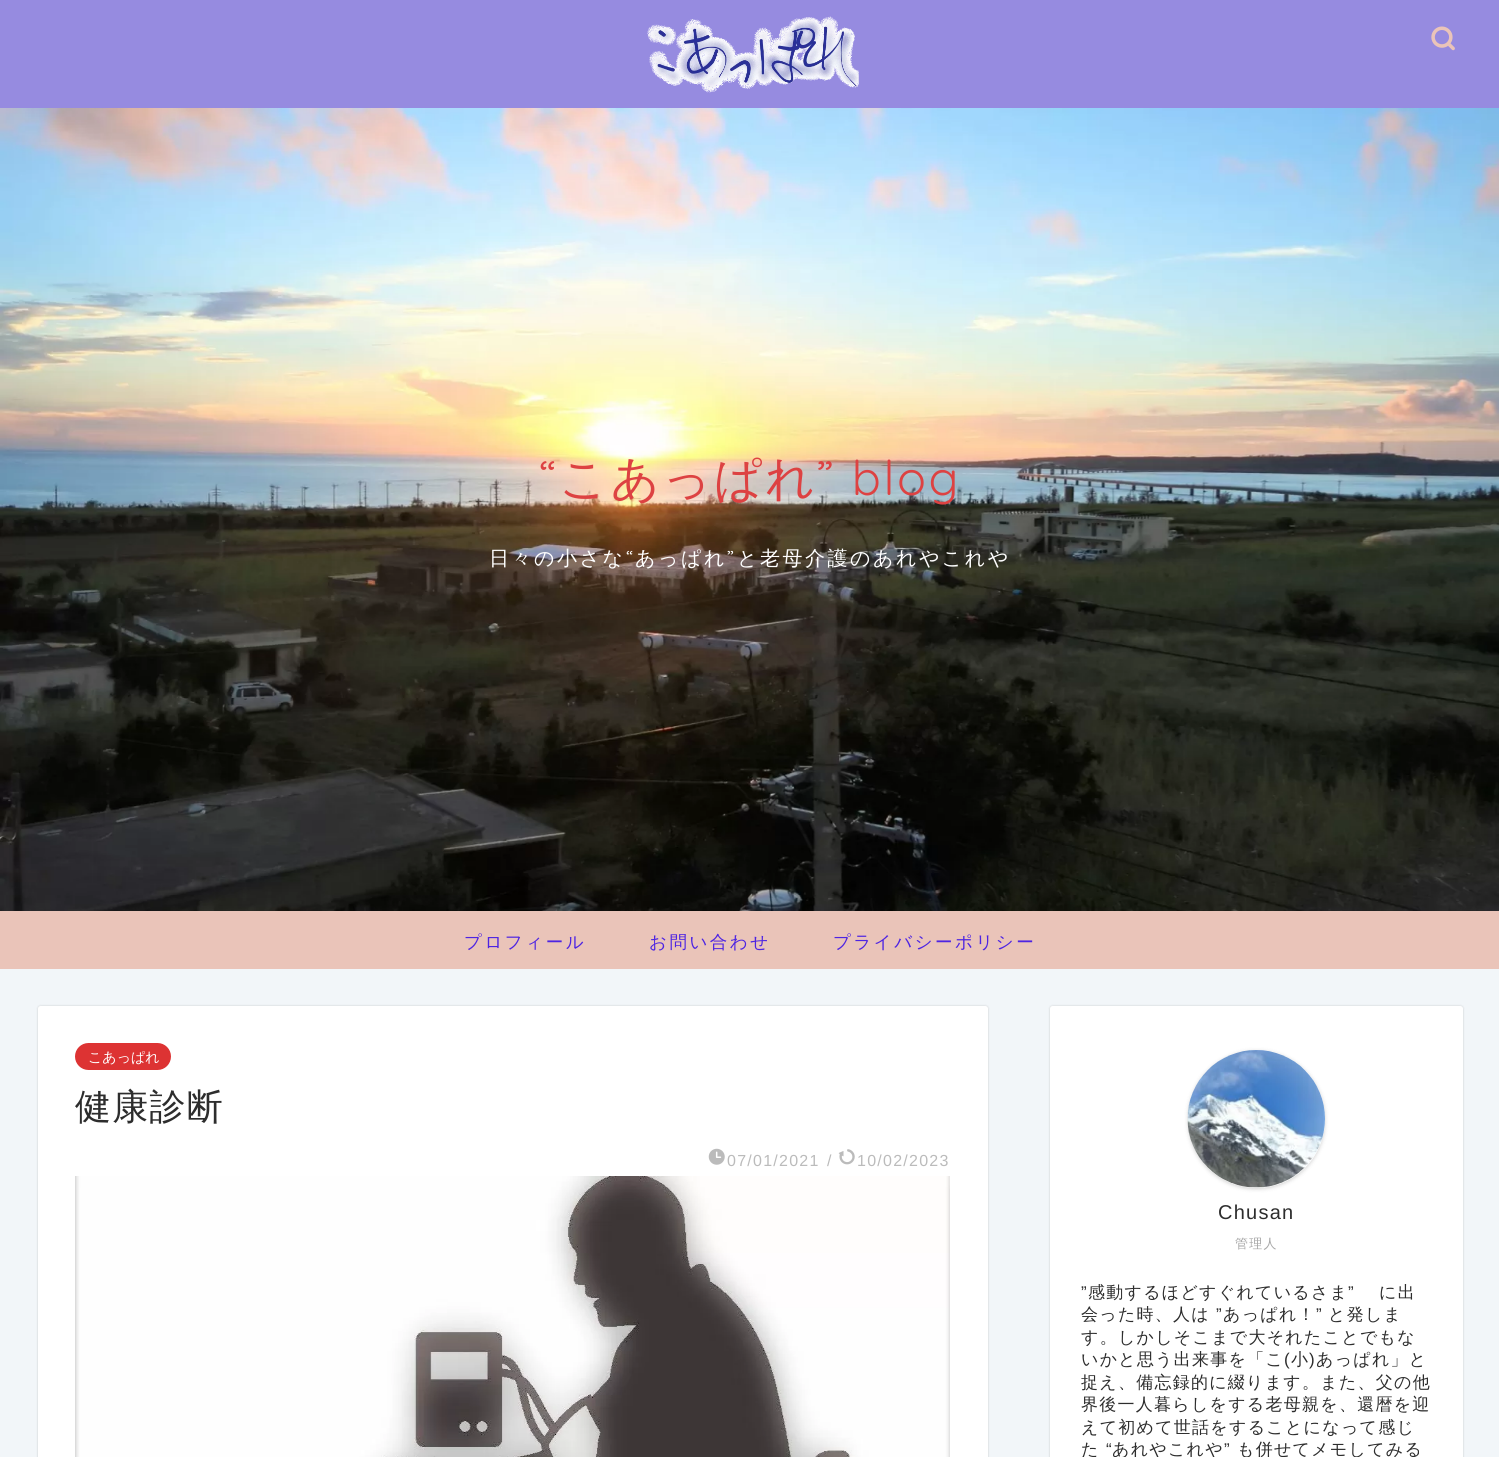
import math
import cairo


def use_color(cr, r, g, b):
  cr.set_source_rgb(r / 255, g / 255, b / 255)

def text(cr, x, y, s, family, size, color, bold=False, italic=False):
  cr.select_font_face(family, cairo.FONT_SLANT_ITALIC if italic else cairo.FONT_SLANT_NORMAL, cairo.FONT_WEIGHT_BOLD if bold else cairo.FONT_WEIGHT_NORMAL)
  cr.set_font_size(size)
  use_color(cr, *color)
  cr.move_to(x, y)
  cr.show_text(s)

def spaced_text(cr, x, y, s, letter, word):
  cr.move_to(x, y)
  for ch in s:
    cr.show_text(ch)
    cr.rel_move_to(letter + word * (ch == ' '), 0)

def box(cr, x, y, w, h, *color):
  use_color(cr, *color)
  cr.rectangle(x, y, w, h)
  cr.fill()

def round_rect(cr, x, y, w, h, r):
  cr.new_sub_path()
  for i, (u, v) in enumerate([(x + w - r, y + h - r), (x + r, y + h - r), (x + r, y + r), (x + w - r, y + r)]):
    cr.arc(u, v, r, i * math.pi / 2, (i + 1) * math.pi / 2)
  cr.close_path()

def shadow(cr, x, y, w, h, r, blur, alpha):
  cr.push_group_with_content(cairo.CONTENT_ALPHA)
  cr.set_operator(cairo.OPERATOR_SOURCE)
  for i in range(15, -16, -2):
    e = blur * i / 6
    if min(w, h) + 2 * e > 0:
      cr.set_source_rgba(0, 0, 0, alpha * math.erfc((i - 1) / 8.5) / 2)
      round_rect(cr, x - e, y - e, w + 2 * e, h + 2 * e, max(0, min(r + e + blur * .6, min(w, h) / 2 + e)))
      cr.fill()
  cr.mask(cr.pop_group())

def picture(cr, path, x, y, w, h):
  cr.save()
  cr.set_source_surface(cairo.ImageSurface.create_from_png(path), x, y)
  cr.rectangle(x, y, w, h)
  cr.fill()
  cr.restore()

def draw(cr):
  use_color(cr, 242, 246, 249)
  cr.paint()
  box(cr, 0, 0, 1499, 108, 150, 139, 224)
  picture(cr, "img_01.png", 647, 16, 212, 77)
  picture(cr, "img_02.png", 1431, 26, 24, 25)
  picture(cr, "img_03.png", 0, 108, 1499, 803)
  box(cr, 0, 911, 1499, 58, 234, 196, 185)
  use_color(cr, 0, 0, 0)
  shadow(cr, 38, 1006, 950, 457, 2.5, 1, 0.18)
  use_color(cr, 255, 255, 255)
  round_rect(cr, 38, 1006, 950, 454, 2.5)
  cr.fill()
  use_color(cr, 221, 51, 51)
  round_rect(cr, 75, 1043, 96, 27, 13.5)
  cr.fill()
  picture(cr, "img_04.png", 708, 1148, 17, 17)
  picture(cr, "img_05.png", 838, 1149, 17, 16)
  picture(cr, "img_06.png", 75, 1176, 875, 281)
  use_color(cr, 0, 0, 0)
  shadow(cr, 1050, 1006, 413, 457, 2.5, 1, 0.18)
  use_color(cr, 255, 255, 255)
  round_rect(cr, 1050, 1006, 413, 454, 2.5)
  cr.fill()
  use_color(cr, 0, 0, 0)
  shadow(cr, 1188, 1051, 137, 138, 68.5, 2, 0.18)
  use_color(cr, 255, 255, 255)
  round_rect(cr, 1188, 1050, 137, 138, 68.5)
  cr.fill()
  picture(cr, "img_07.png", 1187, 1050, 138, 138)
  cr.select_font_face("Quicksand Light")
  cr.set_font_size(48)
  use_color(cr, 221, 66, 66)
  spaced_text(cr, 539, 495, "“", 2.5, 0)
  cr.select_font_face("WenQuanYi Zen Hei Medium")
  spaced_text(cr, 559, 495, "こあっぱれ", 2.5, 0)
  cr.select_font_face("Quicksand Light")
  spaced_text(cr, 817, 495, "” blog", 2.5, 0)
  cr.select_font_face("WenQuanYi Zen Hei Medium")
  cr.set_font_size(20)
  use_color(cr, 255, 255, 255)
  spaced_text(cr, 489, 565, "日々の小さな", 2.5, 0)
  cr.select_font_face("Quicksand Light")
  spaced_text(cr, 626, 565, "“", 2.5, 0)
  cr.select_font_face("WenQuanYi Zen Hei Medium")
  spaced_text(cr, 635, 565, "あっぱれ", 2.5, 0)
  cr.select_font_face("Quicksand Light")
  spaced_text(cr, 727, 565, "”", 2.5, 0)
  cr.select_font_face("WenQuanYi Zen Hei Medium")
  spaced_text(cr, 737, 565, "と老母介護のあれやこれや", 2.5, 0)
  cr.set_font_size(17.5)
  use_color(cr, 77, 36, 226)
  spaced_text(cr, 464, 948, "プロフィール", 2.5, 0)
  spaced_text(cr, 649, 948, "お問い合わせ", 2.5, 0)
  spaced_text(cr, 833, 948, "プライバシーポリシー", 2.5, 0)
  text(cr, 88, 1062, "こあっぱれ", "WenQuanYi Zen Hei Medium", 14, (255, 255, 255))
  cr.set_font_size(36)
  use_color(cr, 45, 45, 45)
  spaced_text(cr, 75, 1119, "健康診断", 1.25, 0)
  cr.select_font_face("Liberation Sans")
  cr.set_font_size(16)
  use_color(cr, 187, 187, 187)
  spaced_text(cr, 727, 1166, "07/01/2021", 1.25, 0)
  spaced_text(cr, 827, 1166, "/", 1.25, 0)
  spaced_text(cr, 857, 1166, "10/02/2023", 1.25, 0)
  cr.set_font_size(20)
  use_color(cr, 45, 45, 45)
  spaced_text(cr, 1218, 1219, "Chusan", 1.25, 0)
  cr.select_font_face("WenQuanYi Zen Hei Medium")
  cr.set_font_size(13)
  use_color(cr, 166, 166, 166)
  spaced_text(cr, 1235, 1248, "管理人", 1.25, 0)
  cr.select_font_face("Liberation Sans")
  cr.set_font_size(17)
  use_color(cr, 45, 45, 45)
  spaced_text(cr, 1081, 1298, "”", 1.25, 0)
  cr.select_font_face("WenQuanYi Zen Hei Medium")
  spaced_text(cr, 1088, 1298, "感動するほどすぐれているさま", 1.25, 0)
  cr.select_font_face("Liberation Sans")
  spaced_text(cr, 1348, 1298, "”", 1.25, 0)
  cr.select_font_face("WenQuanYi Zen Hei Medium")
  spaced_text(cr, 1379, 1298, "に出", 1.25, 0)
  spaced_text(cr, 1081, 1320, "会った時、人は", 1.25, 0)
  cr.select_font_face("Liberation Sans")
  spaced_text(cr, 1216, 1320, "”", 1.25, 0)
  cr.select_font_face("WenQuanYi Zen Hei Medium")
  spaced_text(cr, 1223, 1320, "あっぱれ！", 1.25, 0)
  cr.select_font_face("Liberation Sans")
  spaced_text(cr, 1316, 1320, "”", 1.25, 0)
  cr.select_font_face("WenQuanYi Zen Hei Medium")
  spaced_text(cr, 1328, 1320, "と発しま", 1.25, 0)
  spaced_text(cr, 1081, 1343, "す。しかしそこまで大それたことでもな", 1.25, 0)
  spaced_text(cr, 1081, 1365, "いかと思う出来事を「こ", 1.25, 0)
  cr.select_font_face("Liberation Sans")
  spaced_text(cr, 1284, 1365, "(", 1.25, 0)
  cr.select_font_face("WenQuanYi Zen Hei Medium")
  spaced_text(cr, 1291, 1365, "小", 1.25, 0)
  cr.select_font_face("Liberation Sans")
  spaced_text(cr, 1309, 1365, ")", 1.25, 0)
  cr.select_font_face("WenQuanYi Zen Hei Medium")
  spaced_text(cr, 1316, 1365, "あっぱれ」と", 1.25, 0)
  spaced_text(cr, 1081, 1388, "捉え、備忘録的に綴ります。また、父の他", 1.25, 0)
  spaced_text(cr, 1081, 1410, "界後一人暮らしをする老母親を、還暦を迎", 1.25, 0)
  spaced_text(cr, 1081, 1433, "えて初めて世話をすることになって感じ", 1.25, 0)
  spaced_text(cr, 1081, 1455, "た", 1.25, 0)
  cr.select_font_face("Liberation Sans")
  spaced_text(cr, 1106, 1455, "“", 1.25, 0)
  cr.select_font_face("WenQuanYi Zen Hei Medium")
  spaced_text(cr, 1112, 1455, "あれやこれや", 1.25, 0)
  cr.select_font_face("Liberation Sans")
  spaced_text(cr, 1224, 1455, "”", 1.25, 0)
  cr.select_font_face("WenQuanYi Zen Hei Medium")
  spaced_text(cr, 1237, 1455, "も併せてメモしてみる", 1.25, 0)


surface = cairo.ImageSurface(cairo.FORMAT_RGB24, 1499, 1457)
cr = cairo.Context(surface)
options = cairo.FontOptions()
options.set_hint_metrics(cairo.HINT_METRICS_OFF)
options.set_hint_style(cairo.HINT_STYLE_NONE)
cr.set_font_options(options)
cr.set_miter_limit(4)
draw(cr)
surface.write_to_png("out.png")
